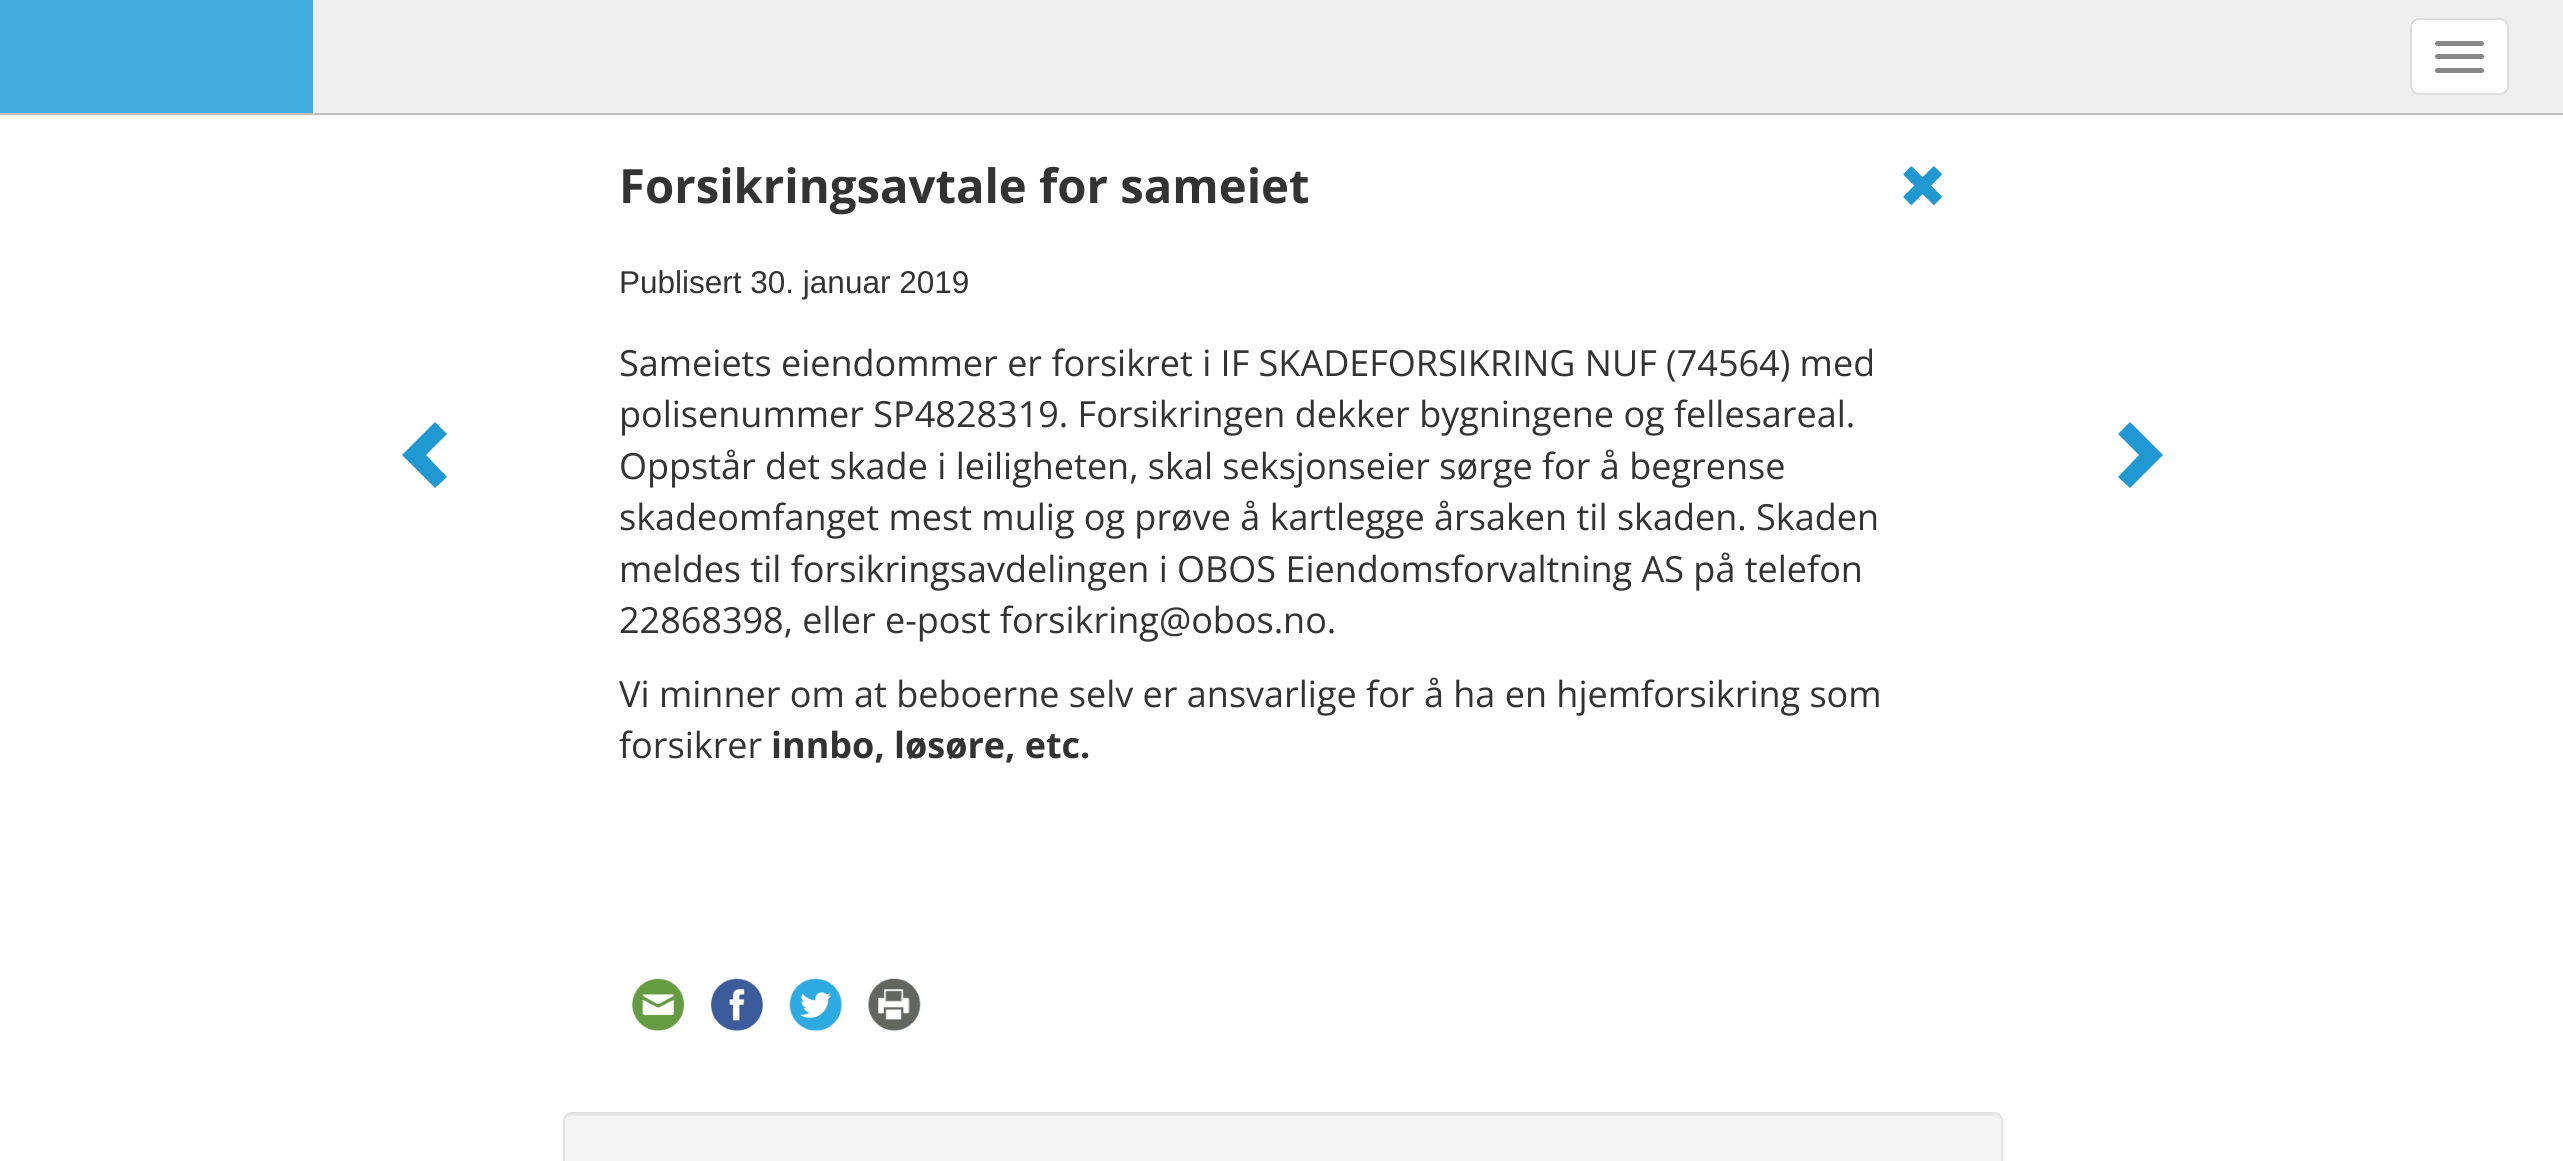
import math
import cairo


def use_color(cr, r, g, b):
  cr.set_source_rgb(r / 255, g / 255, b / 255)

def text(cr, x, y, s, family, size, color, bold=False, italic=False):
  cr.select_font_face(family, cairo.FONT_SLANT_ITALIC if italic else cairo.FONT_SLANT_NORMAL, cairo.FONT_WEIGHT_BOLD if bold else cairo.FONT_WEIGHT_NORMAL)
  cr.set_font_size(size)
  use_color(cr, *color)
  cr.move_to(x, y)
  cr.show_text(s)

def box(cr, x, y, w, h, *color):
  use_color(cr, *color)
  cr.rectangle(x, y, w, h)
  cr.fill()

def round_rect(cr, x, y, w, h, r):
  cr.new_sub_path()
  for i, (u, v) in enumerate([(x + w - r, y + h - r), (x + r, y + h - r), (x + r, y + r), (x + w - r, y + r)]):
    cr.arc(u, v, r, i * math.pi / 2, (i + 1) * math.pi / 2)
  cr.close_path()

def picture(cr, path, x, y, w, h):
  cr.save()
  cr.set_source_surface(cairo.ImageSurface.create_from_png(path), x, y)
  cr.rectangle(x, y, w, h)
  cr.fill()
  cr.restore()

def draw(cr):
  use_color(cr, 255, 255, 255)
  cr.paint()
  box(cr, 313, 0, 2250, 113, 239, 239, 239)
  box(cr, 0, 113, 2563, 2, 191, 191, 191)
  box(cr, 0, 0, 313, 113, 66, 174, 226)
  use_color(cr, 255, 255, 255)
  round_rect(cr, 2411, 19, 97, 75, 8)
  cr.fill_preserve()
  use_color(cr, 221, 221, 221)
  cr.stroke()
  use_color(cr, 136, 136, 136)
  round_rect(cr, 2435, 41, 49, 5, 2.5)
  cr.fill()
  round_rect(cr, 2435, 54, 49, 5, 2.5)
  cr.fill()
  round_rect(cr, 2435, 68, 49, 5, 2.5)
  cr.fill()
  picture(cr, "img_01.png", 1903, 166, 39, 39)
  picture(cr, "img_02.png", 632, 978, 52, 53)
  picture(cr, "img_03.png", 711, 978, 52, 53)
  picture(cr, "img_04.png", 789, 978, 53, 53)
  picture(cr, "img_05.png", 868, 978, 53, 53)
  use_color(cr, 32, 152, 209)
  cr.new_path()
  cr.move_to(447, 434)
  cr.line_to(426, 455)
  cr.line_to(447, 477)
  cr.line_to(435, 488)
  cr.line_to(402, 455)
  cr.line_to(435, 422)
  cr.close_path()
  cr.fill()
  cr.new_path()
  cr.move_to(2163, 455)
  cr.line_to(2130, 488)
  cr.line_to(2118, 477)
  cr.line_to(2139, 455)
  cr.line_to(2118, 434)
  cr.line_to(2130, 422)
  cr.close_path()
  cr.fill()
  use_color(cr, 245, 245, 245)
  round_rect(cr, 563, 1112, 1440, 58, 9)
  cr.fill()
  use_color(cr, 233, 233, 233)
  cr.new_path()
  cr.move_to(572, 1116)
  cr.line_to(1994, 1116)
  cr.curve_to(1997, 1116, 2000, 1119, 2000, 1123)
  cr.line_to(2000, 1121)
  cr.curve_to(2000, 1117, 1997, 1114, 1993, 1114)
  cr.line_to(572, 1114)
  cr.curve_to(568, 1114, 565, 1117, 565, 1121)
  cr.line_to(565, 1123)
  cr.curve_to(565, 1119, 568, 1116, 572, 1116)
  cr.close_path()
  cr.fill()
  round_rect(cr, 564, 1113, 1438, 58, 8)
  use_color(cr, 227, 227, 227)
  cr.stroke()
  text(cr, 619, 203, "Forsikringsavtale for sameiet", "Open Sans", 47.25, (51, 51, 51), bold=True)
  text(cr, 619, 293, "Publisert 30. januar 2019", "Liberation Sans", 31.5, (51, 51, 51))
  text(cr, 619, 376, "Sameiets eiendommer er forsikret i IF SKADEFORSIKRING NUF (74564) med", "Open Sans", 36, (51, 51, 51))
  text(cr, 619, 427, "polisenummer SP4828319. Forsikringen dekker bygningene og fellesareal.", "Open Sans", 36, (51, 51, 51))
  text(cr, 619, 479, "Oppstår det skade i leiligheten, skal seksjonseier sørge for å begrense", "Open Sans", 36, (51, 51, 51))
  text(cr, 619, 530, "skadeomfanget mest mulig og prøve å kartlegge årsaken til skaden. Skaden", "Open Sans", 36, (51, 51, 51))
  text(cr, 619, 582, "meldes til forsikringsavdelingen i OBOS Eiendomsforvaltning AS på telefon", "Open Sans", 36, (51, 51, 51))
  text(cr, 619, 633, "22868398, eller e-post forsikring@obos.no.", "Open Sans", 36, (51, 51, 51))
  text(cr, 619, 707, "Vi minner om at beboerne selv er ansvarlige for å ha en hjemforsikring som", "Open Sans", 36, (51, 51, 51))
  text(cr, 619, 758, "forsikrer", "Open Sans", 36, (51, 51, 51))
  text(cr, 771, 758, "innbo, løsøre, etc.", "Open Sans", 36, (51, 51, 51), bold=True)


surface = cairo.ImageSurface(cairo.FORMAT_RGB24, 2563, 1161)
cr = cairo.Context(surface)
options = cairo.FontOptions()
options.set_hint_metrics(cairo.HINT_METRICS_OFF)
options.set_hint_style(cairo.HINT_STYLE_NONE)
cr.set_font_options(options)
cr.set_miter_limit(4)
draw(cr)
surface.write_to_png("out.png")
